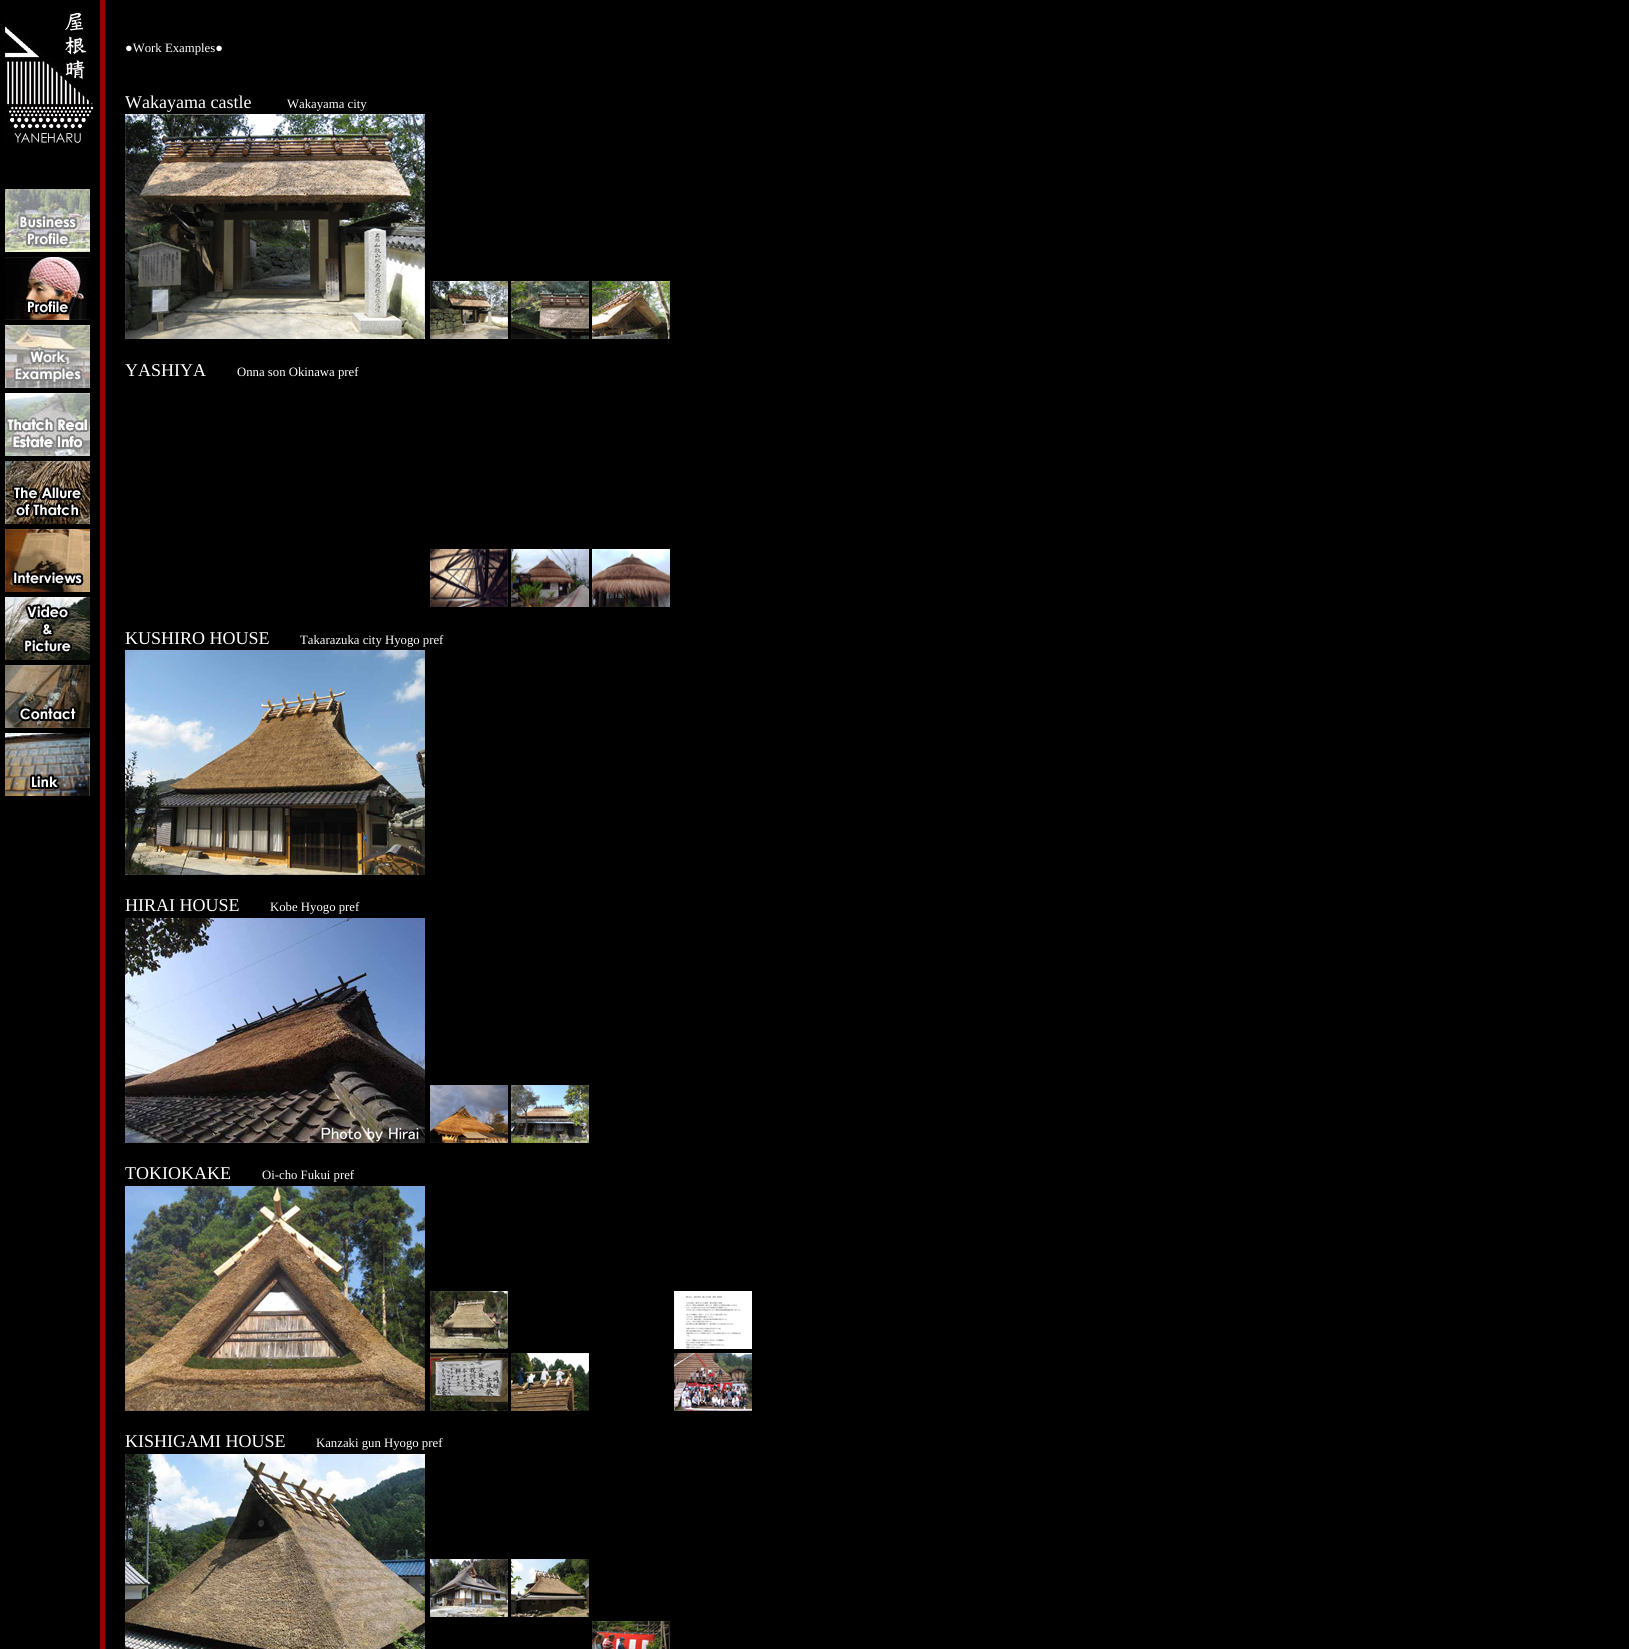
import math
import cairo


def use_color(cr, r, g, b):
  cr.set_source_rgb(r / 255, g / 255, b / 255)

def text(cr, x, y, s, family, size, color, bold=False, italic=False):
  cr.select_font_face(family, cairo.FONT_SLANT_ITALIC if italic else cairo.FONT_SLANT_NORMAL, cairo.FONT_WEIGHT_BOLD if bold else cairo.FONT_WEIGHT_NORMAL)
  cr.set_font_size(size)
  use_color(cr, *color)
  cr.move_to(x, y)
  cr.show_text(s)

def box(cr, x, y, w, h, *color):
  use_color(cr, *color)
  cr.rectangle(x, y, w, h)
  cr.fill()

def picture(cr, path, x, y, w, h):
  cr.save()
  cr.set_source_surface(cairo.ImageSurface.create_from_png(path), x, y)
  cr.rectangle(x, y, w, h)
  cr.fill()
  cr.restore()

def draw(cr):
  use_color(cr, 0, 0, 0)
  cr.paint()
  picture(cr, "img_01.png", 5, 10, 89, 136)
  picture(cr, "img_02.png", 5, 189, 85, 63)
  picture(cr, "img_03.png", 5, 257, 85, 63)
  picture(cr, "img_04.png", 5, 325, 85, 63)
  picture(cr, "img_05.png", 5, 393, 85, 63)
  picture(cr, "img_06.png", 5, 461, 85, 63)
  picture(cr, "img_07.png", 5, 529, 85, 63)
  picture(cr, "img_08.png", 5, 597, 85, 63)
  picture(cr, "img_09.png", 5, 665, 85, 63)
  picture(cr, "img_10.png", 5, 733, 85, 63)
  box(cr, 100, 0, 5, 1649, 153, 0, 0)
  picture(cr, "img_11.png", 125, 114, 300, 225)
  picture(cr, "img_12.png", 430, 281, 78, 58)
  picture(cr, "img_13.png", 511, 281, 78, 58)
  picture(cr, "img_14.png", 592, 281, 78, 58)
  picture(cr, "img_15.png", 430, 549, 78, 58)
  picture(cr, "img_16.png", 511, 549, 78, 58)
  picture(cr, "img_17.png", 592, 549, 78, 58)
  picture(cr, "img_18.png", 125, 650, 300, 225)
  picture(cr, "img_19.png", 125, 918, 300, 225)
  picture(cr, "img_20.png", 430, 1085, 78, 58)
  picture(cr, "img_21.png", 511, 1085, 78, 58)
  picture(cr, "img_22.png", 125, 1186, 300, 225)
  picture(cr, "img_23.png", 430, 1291, 78, 58)
  picture(cr, "img_24.png", 674, 1291, 78, 58)
  picture(cr, "img_25.png", 430, 1353, 78, 58)
  picture(cr, "img_26.png", 511, 1353, 78, 58)
  picture(cr, "img_27.png", 674, 1353, 78, 58)
  picture(cr, "img_28.png", 125, 1454, 300, 195)
  picture(cr, "img_29.png", 430, 1559, 78, 58)
  picture(cr, "img_30.png", 511, 1559, 78, 58)
  picture(cr, "img_31.png", 592, 1621, 78, 28)
  text(cr, 125, 52, "●Work Examples●", "Liberation Serif", 12.75, (255, 255, 255))
  text(cr, 125, 108, "Wakayama castle", "Liberation Serif", 18, (255, 255, 255))
  text(cr, 287, 108, "Wakayama city", "Liberation Serif", 12.75, (255, 255, 255))
  text(cr, 125, 376, "YASHIYA", "Liberation Serif", 18, (255, 255, 255))
  text(cr, 237, 376, "Onna son Okinawa pref", "Liberation Serif", 12.75, (255, 255, 255))
  text(cr, 125, 644, "KUSHIRO HOUSE", "Liberation Serif", 18, (255, 255, 255))
  text(cr, 300, 644, "Takarazuka city Hyogo pref", "Liberation Serif", 12.75, (255, 255, 255))
  text(cr, 125, 911, "HIRAI HOUSE", "Liberation Serif", 18, (255, 255, 255))
  text(cr, 270, 911, "Kobe Hyogo pref", "Liberation Serif", 12.75, (255, 255, 255))
  text(cr, 125, 1179, "TOKIOKAKE", "Liberation Serif", 18, (255, 255, 255))
  text(cr, 262, 1179, "Oi-cho Fukui pref", "Liberation Serif", 12.75, (255, 255, 255))
  text(cr, 125, 1447, "KISHIGAMI HOUSE", "Liberation Serif", 18, (255, 255, 255))
  text(cr, 316, 1447, "Kanzaki gun Hyogo pref", "Liberation Serif", 12.75, (255, 255, 255))


surface = cairo.ImageSurface(cairo.FORMAT_RGB24, 1629, 1649)
cr = cairo.Context(surface)
options = cairo.FontOptions()
options.set_hint_metrics(cairo.HINT_METRICS_OFF)
options.set_hint_style(cairo.HINT_STYLE_NONE)
cr.set_font_options(options)
cr.set_miter_limit(4)
draw(cr)
surface.write_to_png("out.png")
